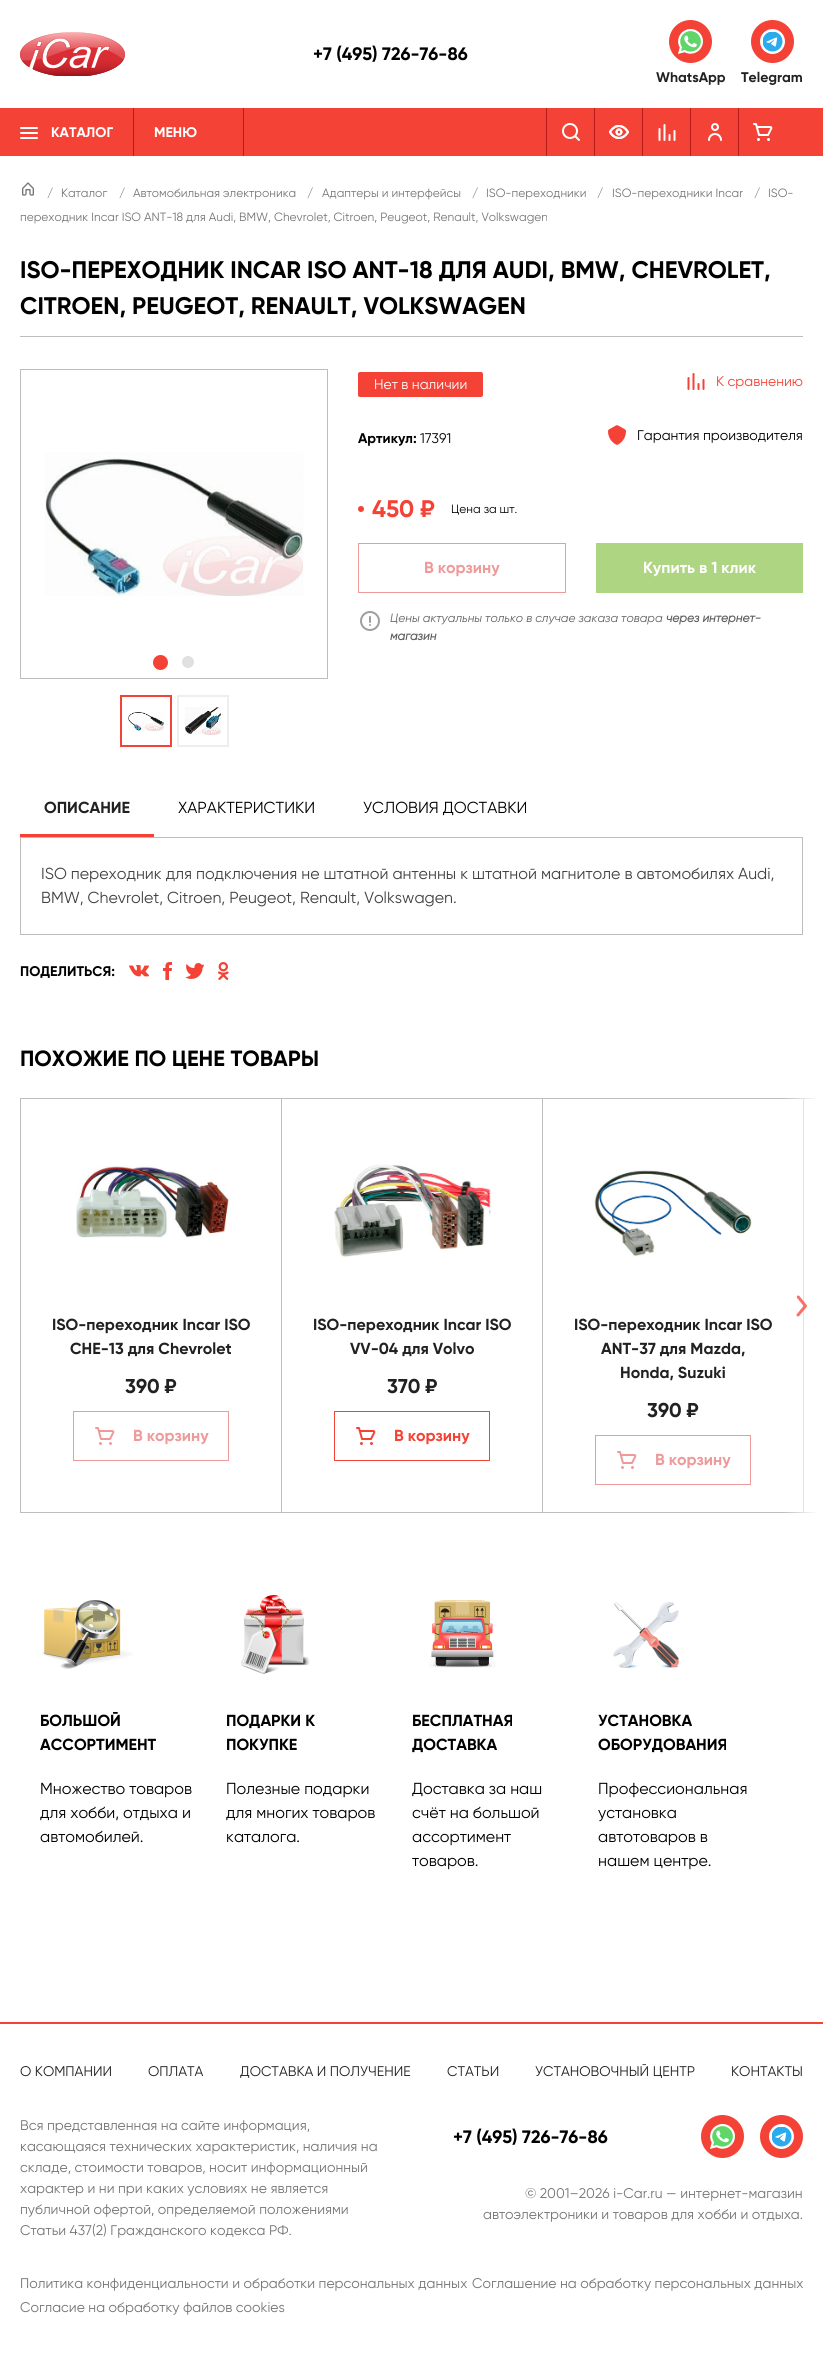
import math
import cairo


def use_color(cr, r, g, b):
  cr.set_source_rgb(r / 255, g / 255, b / 255)

def text(cr, x, y, s, family, size, color, bold=False, italic=False):
  cr.select_font_face(family, cairo.FONT_SLANT_ITALIC if italic else cairo.FONT_SLANT_NORMAL, cairo.FONT_WEIGHT_BOLD if bold else cairo.FONT_WEIGHT_NORMAL)
  cr.set_font_size(size)
  use_color(cr, *color)
  cr.move_to(x, y)
  cr.show_text(s)

def box(cr, x, y, w, h, *color):
  use_color(cr, *color)
  cr.rectangle(x, y, w, h)
  cr.fill()

def round_rect(cr, x, y, w, h, r):
  cr.new_sub_path()
  for i, (u, v) in enumerate([(x + w - r, y + h - r), (x + r, y + h - r), (x + r, y + r), (x + w - r, y + r)]):
    cr.arc(u, v, r, i * math.pi / 2, (i + 1) * math.pi / 2)
  cr.close_path()

def picture(cr, path, x, y, w, h):
  cr.save()
  cr.set_source_surface(cairo.ImageSurface.create_from_png(path), x, y)
  cr.rectangle(x, y, w, h)
  cr.fill()
  cr.restore()

def draw(cr):
  use_color(cr, 255, 255, 255)
  cr.paint()
  picture(cr, "img_01.png", 20, 32, 105, 44)
  use_color(cr, 244, 67, 54)
  cr.arc(690.5, 41.5, 21.5, 0, 2 * math.pi)
  cr.fill()
  picture(cr, "img_02.png", 678, 29, 25, 25)
  cr.arc(772.5, 41.5, 21.5, 0, 2 * math.pi)
  cr.fill()
  picture(cr, "img_03.png", 760, 29, 25, 25)
  box(cr, 0, 108, 823, 48, 244, 67, 54)
  box(cr, 133, 108, 1, 48, 183, 28, 28)
  use_color(cr, 255, 255, 255)
  round_rect(cr, 20, 127, 18, 2, 1)
  cr.fill()
  round_rect(cr, 20, 132, 18, 2, 1)
  cr.fill()
  round_rect(cr, 20, 137, 18, 2, 1)
  cr.fill()
  box(cr, 243, 108, 1, 48, 183, 28, 28)
  box(cr, 546, 108, 1, 48, 183, 28, 28)
  box(cr, 594, 108, 1, 48, 183, 28, 28)
  picture(cr, "img_04.png", 562, 123, 18, 18)
  box(cr, 642, 108, 1, 48, 183, 28, 28)
  picture(cr, "img_05.png", 609, 125, 20, 14)
  box(cr, 690, 108, 1, 48, 183, 28, 28)
  picture(cr, "img_06.png", 658, 124, 18, 17)
  box(cr, 738, 108, 1, 48, 183, 28, 28)
  picture(cr, "img_07.png", 708, 123, 14, 18)
  picture(cr, "img_08.png", 753, 123, 20, 18)
  picture(cr, "img_09.png", 22, 182, 12, 14)
  box(cr, 20, 336, 783, 1, 189, 189, 189)
  cr.rectangle(20.5, 369.5, 307, 309)
  cr.set_line_width(1)
  cr.stroke()
  picture(cr, "img_10.png", 45, 452, 258, 144)
  use_color(cr, 244, 67, 54)
  cr.arc(160.5, 662.5, 7.5, 0, 2 * math.pi)
  cr.fill()
  use_color(cr, 224, 224, 224)
  cr.arc(188, 662, 6, 0, 2 * math.pi)
  cr.fill()
  picture(cr, "img_11.png", 128, 712, 36, 19)
  cr.rectangle(121, 696, 50, 50)
  use_color(cr, 244, 67, 54)
  cr.set_line_width(2)
  cr.stroke()
  picture(cr, "img_12.png", 185, 707, 36, 28)
  cr.rectangle(178, 696, 50, 50)
  use_color(cr, 238, 238, 238)
  cr.stroke()
  use_color(cr, 244, 67, 54)
  round_rect(cr, 358, 372, 125, 25, 2)
  cr.fill()
  picture(cr, "img_13.png", 687, 373, 18, 17)
  picture(cr, "img_14.png", 608, 425, 18, 20)
  cr.arc(361, 509, 3, 0, 2 * math.pi)
  cr.fill()
  cr.rectangle(358.5, 543.5, 207, 49)
  use_color(cr, 239, 154, 154)
  cr.set_line_width(1)
  cr.stroke()
  box(cr, 596, 543, 207, 50, 174, 213, 129)
  picture(cr, "img_15.png", 360, 611, 20, 20)
  box(cr, 20, 834, 134, 3, 244, 67, 54)
  cr.rectangle(20.5, 837.5, 782, 97)
  use_color(cr, 189, 189, 189)
  cr.stroke()
  picture(cr, "img_16.png", 129, 965, 20, 12)
  picture(cr, "img_17.png", 163, 962, 9, 18)
  picture(cr, "img_18.png", 186, 963, 18, 16)
  picture(cr, "img_19.png", 218, 962, 11, 18)
  box(cr, 20, 1098, 795, 1, 189, 189, 189)
  box(cr, 20, 1512, 795, 1, 189, 189, 189)
  box(cr, 20, 1098, 1, 415, 189, 189, 189)
  picture(cr, "img_20.png", 76, 1165, 155, 73)
  cr.rectangle(73.5, 1411.5, 155, 49)
  use_color(cr, 239, 154, 154)
  cr.stroke()
  picture(cr, "img_21.png", 95, 1427, 20, 18)
  box(cr, 281, 1098, 1, 415, 189, 189, 189)
  picture(cr, "img_22.png", 334, 1164, 158, 93)
  cr.rectangle(334.5, 1411.5, 155, 49)
  use_color(cr, 244, 67, 54)
  cr.stroke()
  picture(cr, "img_23.png", 356, 1427, 20, 18)
  box(cr, 542, 1098, 1, 415, 189, 189, 189)
  picture(cr, "img_24.png", 594, 1170, 158, 87)
  cr.rectangle(595.5, 1435.5, 155, 49)
  use_color(cr, 239, 154, 154)
  cr.stroke()
  picture(cr, "img_21.png", 617, 1451, 20, 18)
  box(cr, 803, 1098, 1, 415, 189, 189, 189)
  gradient = cairo.LinearGradient(819, 1306, 783, 1306)
  gradient.add_color_stop_rgba(0, 1, 1, 1, 1)
  gradient.add_color_stop_rgba(1, 1, 1, 1, 0)
  cr.set_source(gradient)
  cr.rectangle(784, 1098, 31, 415)
  cr.fill()
  picture(cr, "img_25.png", 796, 1295, 11, 22)
  picture(cr, "img_26.png", 42, 1600, 91, 69)
  picture(cr, "img_27.png", 241, 1595, 69, 79)
  picture(cr, "img_28.png", 429, 1600, 67, 68)
  picture(cr, "img_29.png", 613, 1601, 67, 67)
  box(cr, 0, 2022, 823, 2, 244, 67, 54)
  cr.arc(722.5, 2136.5, 21.5, 0, 2 * math.pi)
  cr.fill()
  picture(cr, "img_02.png", 710, 2124, 25, 25)
  cr.arc(781.5, 2136.5, 21.5, 0, 2 * math.pi)
  cr.fill()
  picture(cr, "img_03.png", 769, 2124, 25, 25)
  text(cr, 313, 60, "+7 (495) 726-76-86", "Gilroy", 18, (0, 0, 0), bold=True)
  text(cr, 656, 82, "WhatsApp", "Gilroy", 14, (33, 33, 33), bold=True)
  text(cr, 741, 82, "Telegram", "Gilroy", 14, (33, 33, 33), bold=True)
  text(cr, 51, 137, "КАТАЛОГ", "Gilroy", 14, (255, 255, 255), bold=True)
  text(cr, 154, 137, "МЕНЮ", "Gilroy", 14, (255, 255, 255), bold=True)
  text(cr, 47, 197, "/", "Gilroy", 12, (117, 117, 117))
  text(cr, 61, 197, "Каталог", "Gilroy", 12, (117, 117, 117))
  text(cr, 119, 197, "/", "Gilroy", 12, (117, 117, 117))
  text(cr, 133, 197, "Автомобильная электроника", "Gilroy", 12, (117, 117, 117))
  text(cr, 307, 197, "/", "Gilroy", 12, (117, 117, 117))
  text(cr, 322, 197, "Адаптеры и интерфейсы", "Gilroy", 12, (117, 117, 117))
  text(cr, 472, 197, "/", "Gilroy", 12, (117, 117, 117))
  text(cr, 486, 197, "ISO-переходники", "Gilroy", 12, (117, 117, 117))
  text(cr, 597, 197, "/", "Gilroy", 12, (117, 117, 117))
  text(cr, 612, 197, "ISO-переходники Incar", "Gilroy", 12, (117, 117, 117))
  text(cr, 754, 197, "/", "Gilroy", 12, (117, 117, 117))
  text(cr, 768, 197, "ISO-", "Gilroy", 12, (117, 117, 117))
  text(cr, 20, 221, "переходник Incar ISO ANT-18 для Audi, BMW, Chevrolet, Citroen, Peugeot, Renault, Volkswagen", "Gilroy", 12, (117, 117, 117))
  text(cr, 20, 278, "ISO-ПЕРЕХОДНИК INCAR ISO ANT-18 ДЛЯ AUDI, BMW, CHEVROLET,", "Gilroy", 24, (0, 0, 0), bold=True)
  text(cr, 20, 314, "CITROEN, PEUGEOT, RENAULT, VOLKSWAGEN", "Gilroy", 24, (0, 0, 0), bold=True)
  text(cr, 374, 389, "Нет в наличии", "Gilroy", 14, (255, 255, 255))
  text(cr, 716, 386, "К сравнению", "Gilroy", 14, (244, 67, 54))
  text(cr, 358, 443, "Артикул:", "Gilroy", 14, (0, 0, 0), bold=True)
  text(cr, 420, 443, "17391", "Gilroy", 14, (0, 0, 0))
  text(cr, 637, 440, "Гарантия производителя", "Gilroy", 14, (0, 0, 0))
  text(cr, 372, 517, "450 ₽", "Gilroy", 24, (244, 67, 54), bold=True)
  text(cr, 451, 513, "Цена за шт.", "Gilroy", 12, (0, 0, 0))
  text(cr, 424, 573, "В корзину", "Gilroy", 16, (239, 154, 154), bold=True)
  text(cr, 643, 573, "Купить в 1 клик", "Gilroy", 16, (255, 255, 255), bold=True)
  text(cr, 390, 622, "Цены актуальны только в случае заказа товара", "Gilroy", 12, (97, 97, 97), italic=True)
  text(cr, 666, 622, "через интернет-", "Gilroy", 12, (97, 97, 97), bold=True, italic=True)
  text(cr, 390, 640, "магазин", "Gilroy", 12, (97, 97, 97), bold=True, italic=True)
  text(cr, 44, 813, "ОПИСАНИЕ", "Gilroy", 16, (33, 33, 33), bold=True)
  text(cr, 178, 813, "ХАРАКТЕРИСТИКИ", "Gilroy", 16, (0, 0, 0))
  text(cr, 363, 813, "УСЛОВИЯ ДОСТАВКИ", "Gilroy", 16, (0, 0, 0))
  text(cr, 41, 879, "ISO переходник для подключения не штатной антенны к штатной магнитоле в автомобилях Audi,", "Gilroy", 16, (66, 66, 66))
  text(cr, 41, 903, "BMW, Chevrolet, Citroen, Peugeot, Renault, Volkswagen.", "Gilroy", 16, (66, 66, 66))
  text(cr, 20, 976, "ПОДЕЛИТЬСЯ:", "Gilroy", 14, (0, 0, 0), bold=True)
  text(cr, 20, 1066, "ПОХОЖИЕ ПО ЦЕНЕ ТОВАРЫ", "Gilroy", 22, (0, 0, 0), bold=True)
  text(cr, 52, 1330, "ISO-переходник Incar ISO", "Gilroy", 16, (33, 33, 33), bold=True)
  text(cr, 70, 1354, "CHE-13 для Chevrolet", "Gilroy", 16, (33, 33, 33), bold=True)
  text(cr, 125, 1393, "390 ₽", "Gilroy", 20, (33, 33, 33), bold=True)
  text(cr, 133, 1441, "В корзину", "Gilroy", 16, (239, 154, 154), bold=True)
  text(cr, 313, 1330, "ISO-переходник Incar ISO", "Gilroy", 16, (33, 33, 33), bold=True)
  text(cr, 350, 1354, "VV-04 для Volvo", "Gilroy", 16, (33, 33, 33), bold=True)
  text(cr, 387, 1393, "370 ₽", "Gilroy", 20, (33, 33, 33), bold=True)
  text(cr, 394, 1441, "В корзину", "Gilroy", 16, (244, 67, 54), bold=True)
  text(cr, 574, 1330, "ISO-переходник Incar ISO", "Gilroy", 16, (33, 33, 33), bold=True)
  text(cr, 601, 1354, "ANT-37 для Mazda,", "Gilroy", 16, (33, 33, 33), bold=True)
  text(cr, 620, 1378, "Honda, Suzuki", "Gilroy", 16, (33, 33, 33), bold=True)
  text(cr, 647, 1417, "390 ₽", "Gilroy", 20, (33, 33, 33), bold=True)
  text(cr, 655, 1465, "В корзину", "Gilroy", 16, (239, 154, 154), bold=True)
  text(cr, 40, 1726, "БОЛЬШОЙ", "Gilroy", 16, (0, 0, 0), bold=True)
  text(cr, 40, 1750, "АССОРТИМЕНТ", "Gilroy", 16, (0, 0, 0), bold=True)
  text(cr, 40, 1794, "Множество товаров", "Gilroy", 16, (0, 0, 0))
  text(cr, 40, 1818, "для хобби, отдыха и", "Gilroy", 16, (0, 0, 0))
  text(cr, 40, 1842, "автомобилей.", "Gilroy", 16, (0, 0, 0))
  text(cr, 226, 1726, "ПОДАРКИ К", "Gilroy", 16, (0, 0, 0), bold=True)
  text(cr, 226, 1750, "ПОКУПКЕ", "Gilroy", 16, (0, 0, 0), bold=True)
  text(cr, 226, 1794, "Полезные подарки", "Gilroy", 16, (0, 0, 0))
  text(cr, 226, 1818, "для многих товаров", "Gilroy", 16, (0, 0, 0))
  text(cr, 226, 1842, "каталога.", "Gilroy", 16, (0, 0, 0))
  text(cr, 412, 1726, "БЕСПЛАТНАЯ", "Gilroy", 16, (0, 0, 0), bold=True)
  text(cr, 412, 1750, "ДОСТАВКА", "Gilroy", 16, (0, 0, 0), bold=True)
  text(cr, 412, 1794, "Доставка за наш", "Gilroy", 16, (0, 0, 0))
  text(cr, 412, 1818, "счёт на большой", "Gilroy", 16, (0, 0, 0))
  text(cr, 412, 1842, "ассортимент", "Gilroy", 16, (0, 0, 0))
  text(cr, 412, 1866, "товаров.", "Gilroy", 16, (0, 0, 0))
  text(cr, 598, 1726, "УСТАНОВКА", "Gilroy", 16, (0, 0, 0), bold=True)
  text(cr, 598, 1750, "ОБОРУДОВАНИЯ", "Gilroy", 16, (0, 0, 0), bold=True)
  text(cr, 598, 1794, "Профессиональная", "Gilroy", 16, (0, 0, 0))
  text(cr, 598, 1818, "установка", "Gilroy", 16, (0, 0, 0))
  text(cr, 598, 1842, "автотоваров в", "Gilroy", 16, (0, 0, 0))
  text(cr, 598, 1866, "нашем центре.", "Gilroy", 16, (0, 0, 0))
  text(cr, 20, 2076, "О КОМПАНИИ", "Gilroy", 14, (33, 33, 33))
  text(cr, 148, 2076, "ОПЛАТА", "Gilroy", 14, (33, 33, 33))
  text(cr, 240, 2076, "ДОСТАВКА И ПОЛУЧЕНИЕ", "Gilroy", 14, (33, 33, 33))
  text(cr, 447, 2076, "СТАТЬИ", "Gilroy", 14, (33, 33, 33))
  text(cr, 535, 2076, "УСТАНОВОЧНЫЙ ЦЕНТР", "Gilroy", 14, (33, 33, 33))
  text(cr, 731, 2076, "КОНТАКТЫ", "Gilroy", 14, (33, 33, 33))
  text(cr, 20, 2130, "Вся представленная на сайте информация,", "Gilroy", 14, (117, 117, 117))
  text(cr, 20, 2151, "касающаяся технических характеристик, наличия на", "Gilroy", 14, (117, 117, 117))
  text(cr, 20, 2172, "складе, стоимости товаров, носит информационный", "Gilroy", 14, (117, 117, 117))
  text(cr, 20, 2193, "характер и ни при каких условиях не является", "Gilroy", 14, (117, 117, 117))
  text(cr, 20, 2214, "публичной офертой, определяемой положениями", "Gilroy", 14, (117, 117, 117))
  text(cr, 20, 2235, "Статьи 437(2) Гражданского кодекса РФ.", "Gilroy", 14, (117, 117, 117))
  text(cr, 453, 2143, "+7 (495) 726-76-86", "Gilroy", 18, (0, 0, 0), bold=True)
  text(cr, 525, 2198, "© 2001–2026 i-Car.ru — интернет-магазин", "Gilroy", 14, (117, 117, 117))
  text(cr, 483, 2219, "автоэлектроники и товаров для хобби и отдыха.", "Gilroy", 14, (117, 117, 117))
  text(cr, 20, 2288, "Политика конфиденциальности и обработки персональных данных", "Gilroy", 14, (117, 117, 117))
  text(cr, 472, 2288, "Соглашение на обработку персональных данных", "Gilroy", 14, (117, 117, 117))
  text(cr, 20, 2312, "Согласие на обработку файлов cookies", "Gilroy", 14, (117, 117, 117))


surface = cairo.ImageSurface(cairo.FORMAT_RGB24, 823, 2354)
cr = cairo.Context(surface)
options = cairo.FontOptions()
options.set_hint_metrics(cairo.HINT_METRICS_OFF)
options.set_hint_style(cairo.HINT_STYLE_NONE)
cr.set_font_options(options)
cr.set_miter_limit(4)
draw(cr)
surface.write_to_png("out.png")
